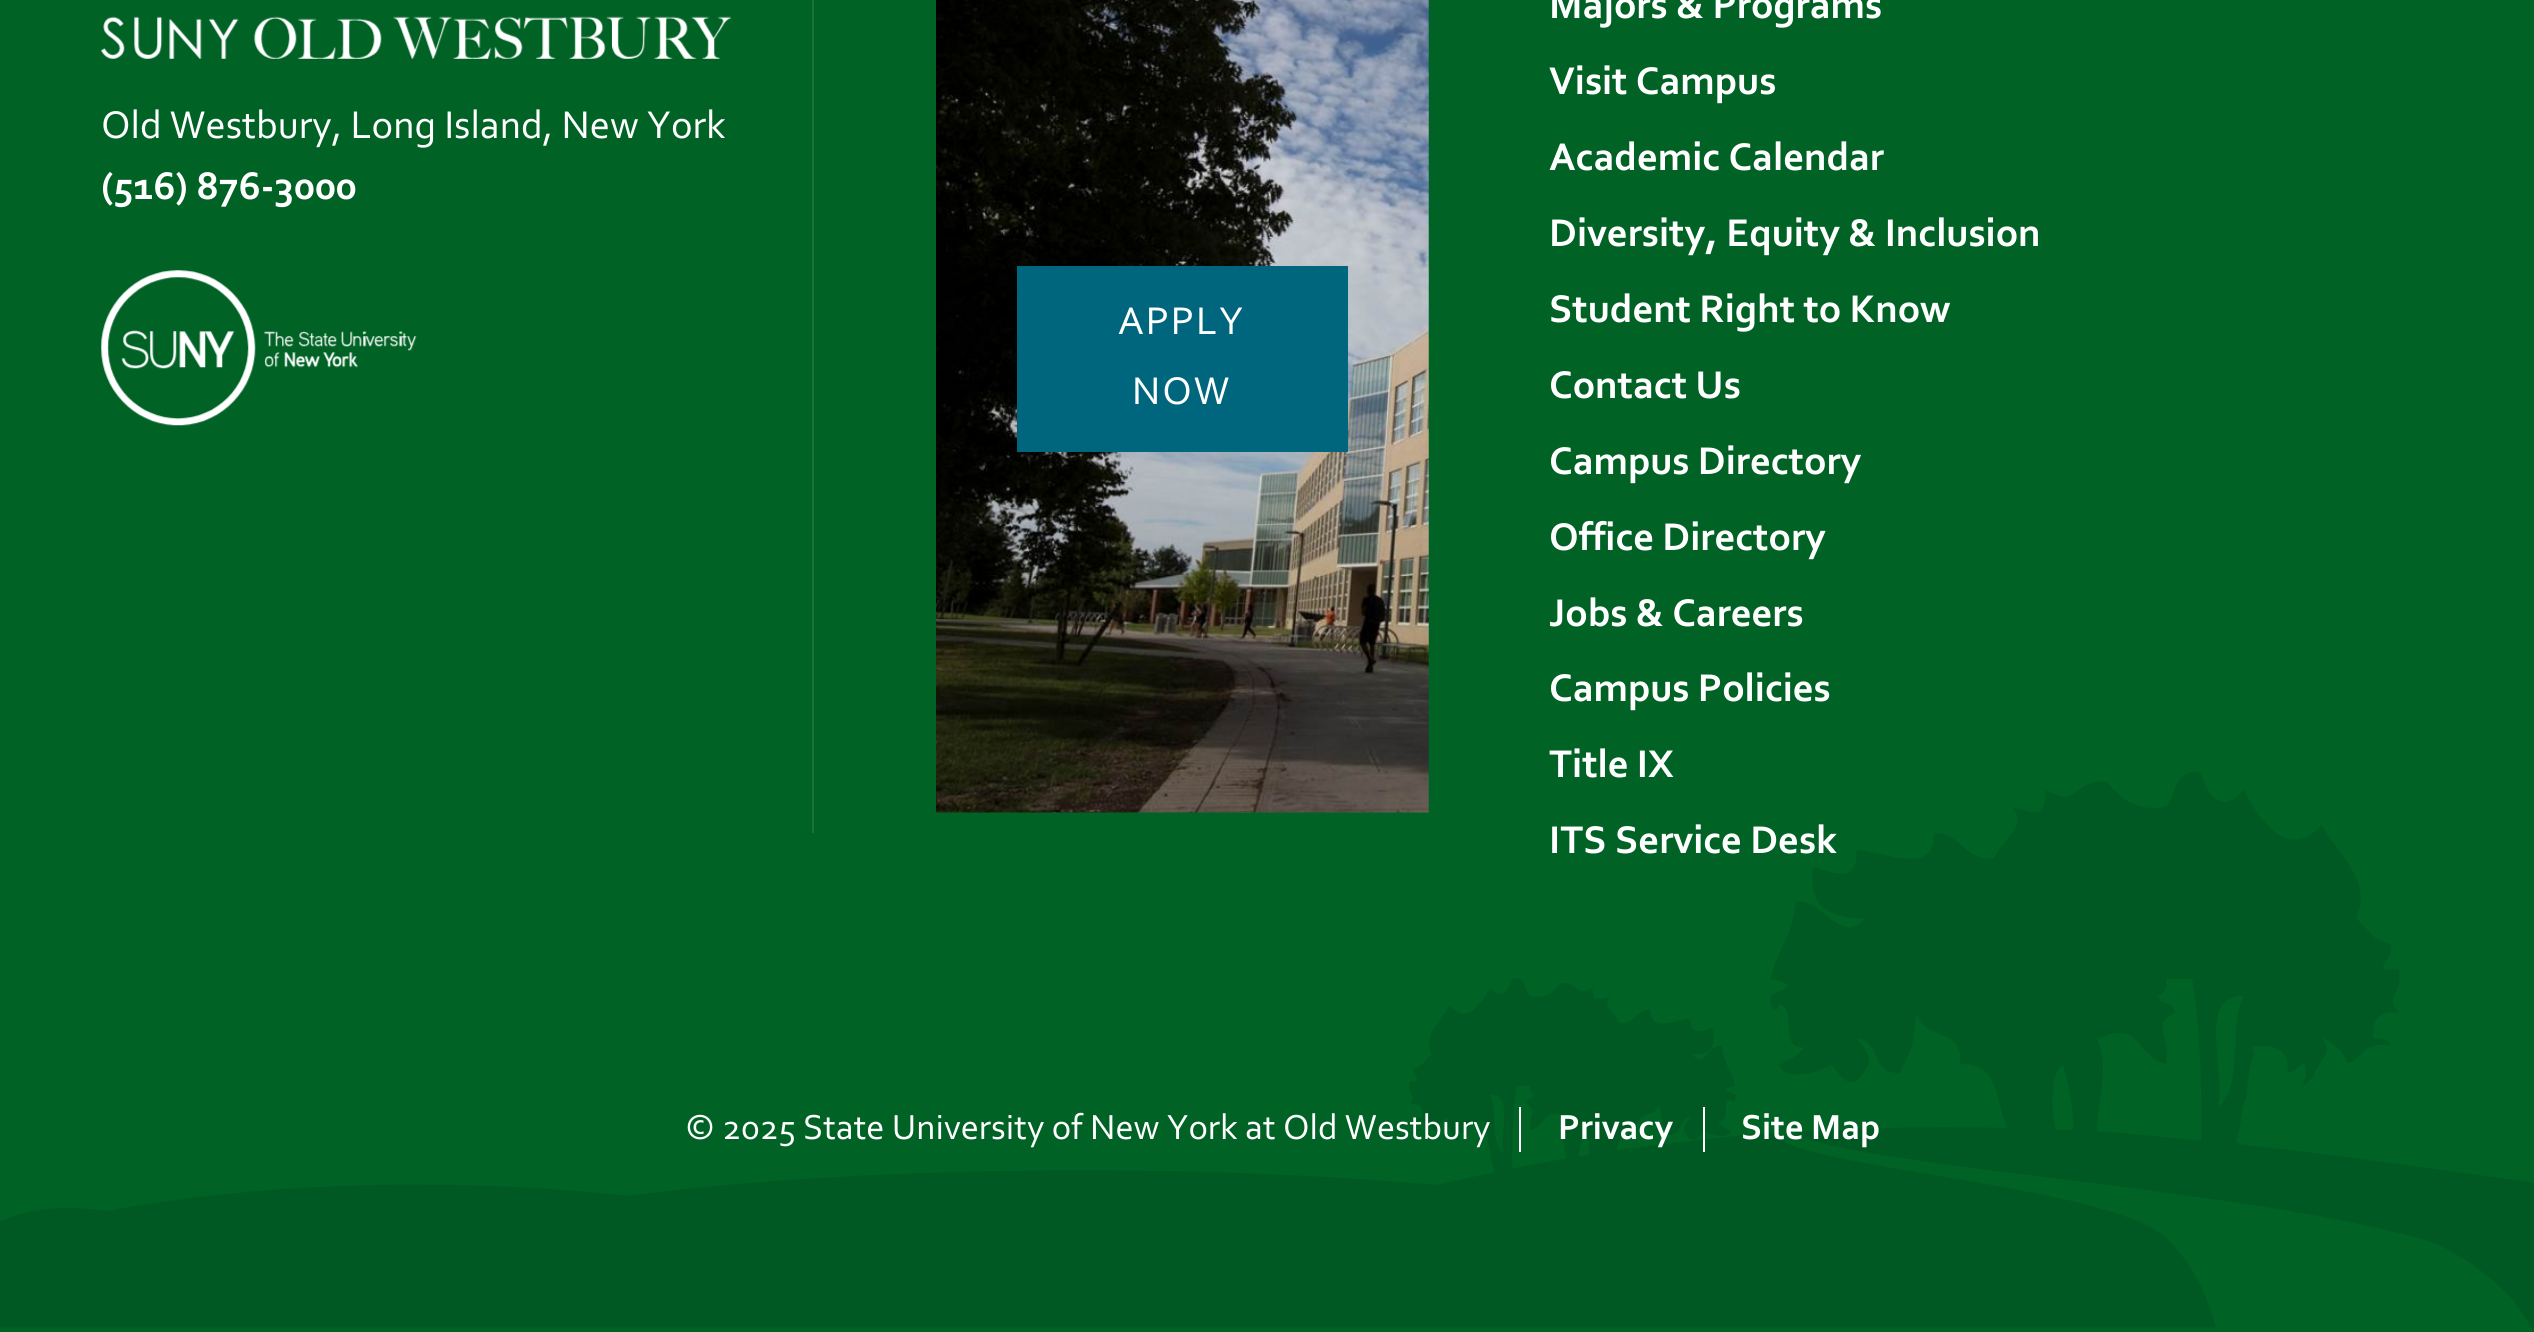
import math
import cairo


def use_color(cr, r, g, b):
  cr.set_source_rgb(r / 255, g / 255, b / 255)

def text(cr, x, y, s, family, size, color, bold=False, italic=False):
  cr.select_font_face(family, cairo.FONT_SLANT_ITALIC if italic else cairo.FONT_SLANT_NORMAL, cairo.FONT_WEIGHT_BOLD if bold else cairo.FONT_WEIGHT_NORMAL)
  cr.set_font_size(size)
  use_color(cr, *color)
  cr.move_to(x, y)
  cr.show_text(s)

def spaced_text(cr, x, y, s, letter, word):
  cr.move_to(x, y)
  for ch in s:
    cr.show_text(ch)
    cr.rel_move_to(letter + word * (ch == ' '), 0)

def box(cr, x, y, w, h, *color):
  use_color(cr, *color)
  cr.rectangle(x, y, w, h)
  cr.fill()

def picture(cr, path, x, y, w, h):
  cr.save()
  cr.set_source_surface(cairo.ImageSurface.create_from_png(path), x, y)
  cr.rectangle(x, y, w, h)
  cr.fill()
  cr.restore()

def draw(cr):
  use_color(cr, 0, 98, 37)
  cr.paint()
  picture(cr, "img_01.png", 0, 772, 2534, 556)
  box(cr, 812, 0, 2, 833, 26, 114, 59)
  picture(cr, "img_02.png", 101, 16, 630, 43)
  picture(cr, "img_03.png", 101, 270, 316, 156)
  picture(cr, "img_04.png", 936, 0, 493, 813)
  box(cr, 1017, 266, 331, 186, 0, 102, 126)
  box(cr, 1519, 1107, 2, 45, 255, 255, 255)
  box(cr, 1703, 1107, 2, 45, 255, 255, 255)
  text(cr, 101, 138, "Old Westbury, Long Island, New York", "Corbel", 40.5, (255, 255, 255))
  text(cr, 101, 199, "(516) 876-3000", "Corbel", 40.5, (255, 255, 255), bold=True)
  text(cr, 1549, 18, "Majors & Programs", "Corbel", 40.5, (255, 255, 255), bold=True)
  text(cr, 1549, 94, "Visit Campus", "Corbel", 40.5, (255, 255, 255), bold=True)
  text(cr, 1549, 170, "Academic Calendar", "Corbel", 40.5, (255, 255, 255), bold=True)
  text(cr, 1549, 246, "Diversity, Equity & Inclusion", "Corbel", 40.5, (255, 255, 255), bold=True)
  text(cr, 1549, 322, "Student Right to Know", "Corbel", 40.5, (255, 255, 255), bold=True)
  text(cr, 1549, 398, "Contact Us", "Corbel", 40.5, (255, 255, 255), bold=True)
  text(cr, 1549, 474, "Campus Directory", "Corbel", 40.5, (255, 255, 255), bold=True)
  text(cr, 1549, 550, "Office Directory", "Corbel", 40.5, (255, 255, 255), bold=True)
  text(cr, 1549, 626, "Jobs & Careers", "Corbel", 40.5, (255, 255, 255), bold=True)
  text(cr, 1549, 701, "Campus Policies", "Corbel", 40.5, (255, 255, 255), bold=True)
  text(cr, 1549, 777, "Title IX", "Corbel", 40.5, (255, 255, 255), bold=True)
  text(cr, 1549, 853, "ITS Service Desk", "Corbel", 40.5, (255, 255, 255), bold=True)
  cr.select_font_face("Corbel")
  spaced_text(cr, 1118, 334, "APPLY", 2, 0)
  spaced_text(cr, 1132, 404, "NOW", 2, 0)
  text(cr, 685, 1139, "© 2025 State University of New York at Old Westbury", "Corbel", 36.45, (255, 255, 255))
  text(cr, 1558, 1139, "Privacy", "Corbel", 36.45, (255, 255, 255), bold=True)
  text(cr, 1741, 1139, "Site Map", "Corbel", 36.45, (255, 255, 255), bold=True)


surface = cairo.ImageSurface(cairo.FORMAT_RGB24, 2534, 1332)
cr = cairo.Context(surface)
options = cairo.FontOptions()
options.set_hint_metrics(cairo.HINT_METRICS_OFF)
options.set_hint_style(cairo.HINT_STYLE_NONE)
cr.set_font_options(options)
cr.set_miter_limit(4)
draw(cr)
surface.write_to_png("out.png")
